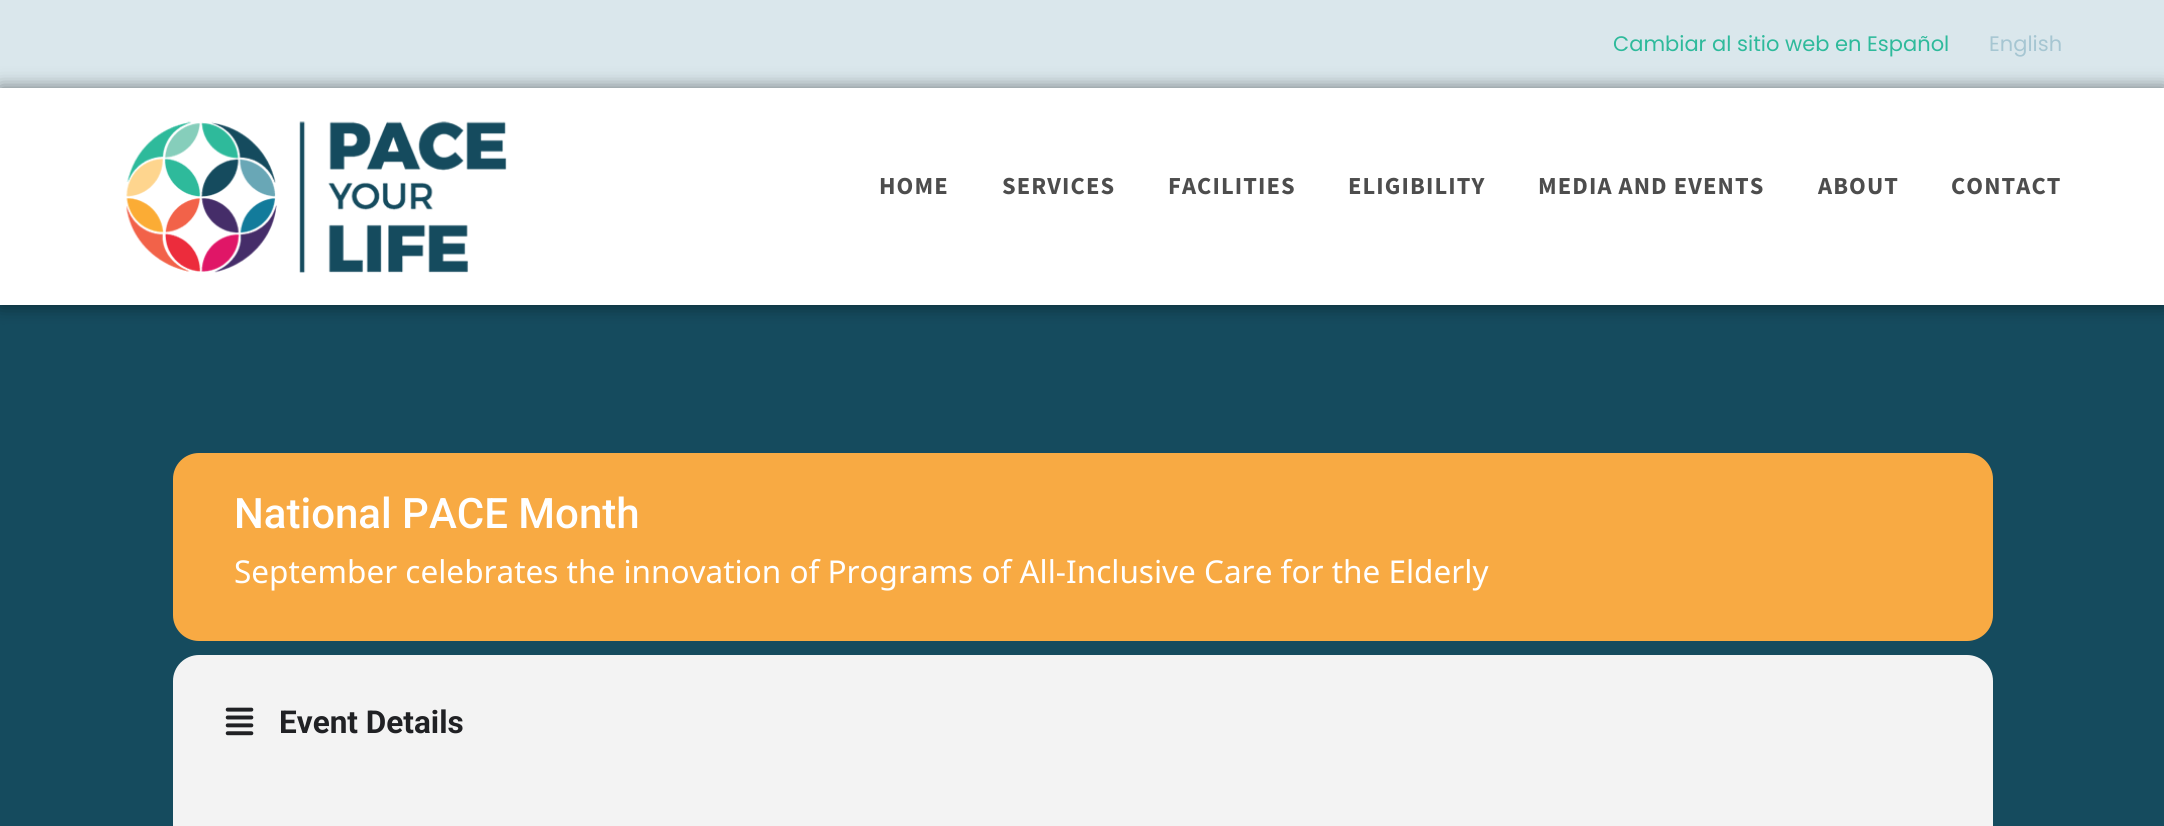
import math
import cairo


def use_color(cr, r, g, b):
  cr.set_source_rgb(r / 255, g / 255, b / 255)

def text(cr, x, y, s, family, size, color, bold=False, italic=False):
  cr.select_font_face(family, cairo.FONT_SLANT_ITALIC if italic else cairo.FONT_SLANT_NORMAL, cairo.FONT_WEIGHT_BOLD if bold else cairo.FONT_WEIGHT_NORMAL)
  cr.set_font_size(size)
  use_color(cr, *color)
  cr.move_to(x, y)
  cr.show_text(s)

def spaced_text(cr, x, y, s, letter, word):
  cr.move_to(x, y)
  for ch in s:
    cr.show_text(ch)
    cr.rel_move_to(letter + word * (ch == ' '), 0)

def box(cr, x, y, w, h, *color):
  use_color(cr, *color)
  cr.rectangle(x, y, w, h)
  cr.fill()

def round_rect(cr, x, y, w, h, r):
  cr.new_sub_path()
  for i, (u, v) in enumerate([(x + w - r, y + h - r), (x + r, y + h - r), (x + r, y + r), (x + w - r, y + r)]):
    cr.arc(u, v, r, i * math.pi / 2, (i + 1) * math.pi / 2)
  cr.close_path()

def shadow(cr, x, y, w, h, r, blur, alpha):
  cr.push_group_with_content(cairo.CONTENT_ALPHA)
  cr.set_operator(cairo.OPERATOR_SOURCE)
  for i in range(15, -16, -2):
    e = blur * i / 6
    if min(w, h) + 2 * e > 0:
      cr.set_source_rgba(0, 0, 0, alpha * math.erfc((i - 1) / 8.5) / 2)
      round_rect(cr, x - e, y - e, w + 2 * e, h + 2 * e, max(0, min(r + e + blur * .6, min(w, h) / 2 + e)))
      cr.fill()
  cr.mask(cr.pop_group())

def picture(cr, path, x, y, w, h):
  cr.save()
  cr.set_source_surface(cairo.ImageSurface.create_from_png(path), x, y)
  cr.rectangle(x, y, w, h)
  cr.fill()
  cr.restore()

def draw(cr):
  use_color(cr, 21, 75, 94)
  cr.paint()
  box(cr, 0, 0, 2164, 88, 218, 231, 236)
  use_color(cr, 0, 0, 0)
  shadow(cr, 0, 88, 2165, 217, 0, 9, 0.5)
  box(cr, 0, 88, 2164, 217, 255, 255, 255)
  picture(cr, "img_01.png", 126, 121, 381, 152)
  use_color(cr, 248, 170, 67)
  round_rect(cr, 173, 453, 1820, 188, 26)
  cr.fill()
  use_color(cr, 243, 243, 243)
  round_rect(cr, 173, 655, 1820, 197, 26)
  cr.fill()
  picture(cr, "img_02.png", 225, 707, 29, 29)
  text(cr, 1613, 51, "Cambiar al sitio web en Español", "Poppins", 21, (46, 186, 155))
  text(cr, 1989, 51, "English", "Poppins", 21, (166, 198, 210))
  cr.select_font_face("Source Sans Pro", cairo.FONT_SLANT_NORMAL, cairo.FONT_WEIGHT_BOLD)
  cr.set_font_size(24.5)
  use_color(cr, 77, 77, 77)
  spaced_text(cr, 879, 194, "HOME", 1.1, 0)
  spaced_text(cr, 1002, 194, "SERVICES", 1.1, 0)
  spaced_text(cr, 1168, 194, "FACILITIES", 1.1, 0)
  spaced_text(cr, 1348, 194, "ELIGIBILITY", 1.1, 0)
  spaced_text(cr, 1538, 194, "MEDIA AND EVENTS", 1.1, 0)
  spaced_text(cr, 1818, 194, "ABOUT", 1.1, 0)
  spaced_text(cr, 1951, 194, "CONTACT", 1.1, 0)
  text(cr, 234, 528, "National PACE Month", "Roboto Medium", 42, (255, 255, 255))
  text(cr, 234, 583, "September celebrates the innovation of Programs of All-Inclusive Care for the Elderly", "Noto Sans", 31.5, (255, 255, 255))
  text(cr, 279, 733, "Event Details", "Roboto", 31.5, (32, 33, 36), bold=True)


surface = cairo.ImageSurface(cairo.FORMAT_RGB24, 2164, 826)
cr = cairo.Context(surface)
options = cairo.FontOptions()
options.set_hint_metrics(cairo.HINT_METRICS_OFF)
options.set_hint_style(cairo.HINT_STYLE_NONE)
cr.set_font_options(options)
cr.set_miter_limit(4)
draw(cr)
surface.write_to_png("out.png")
